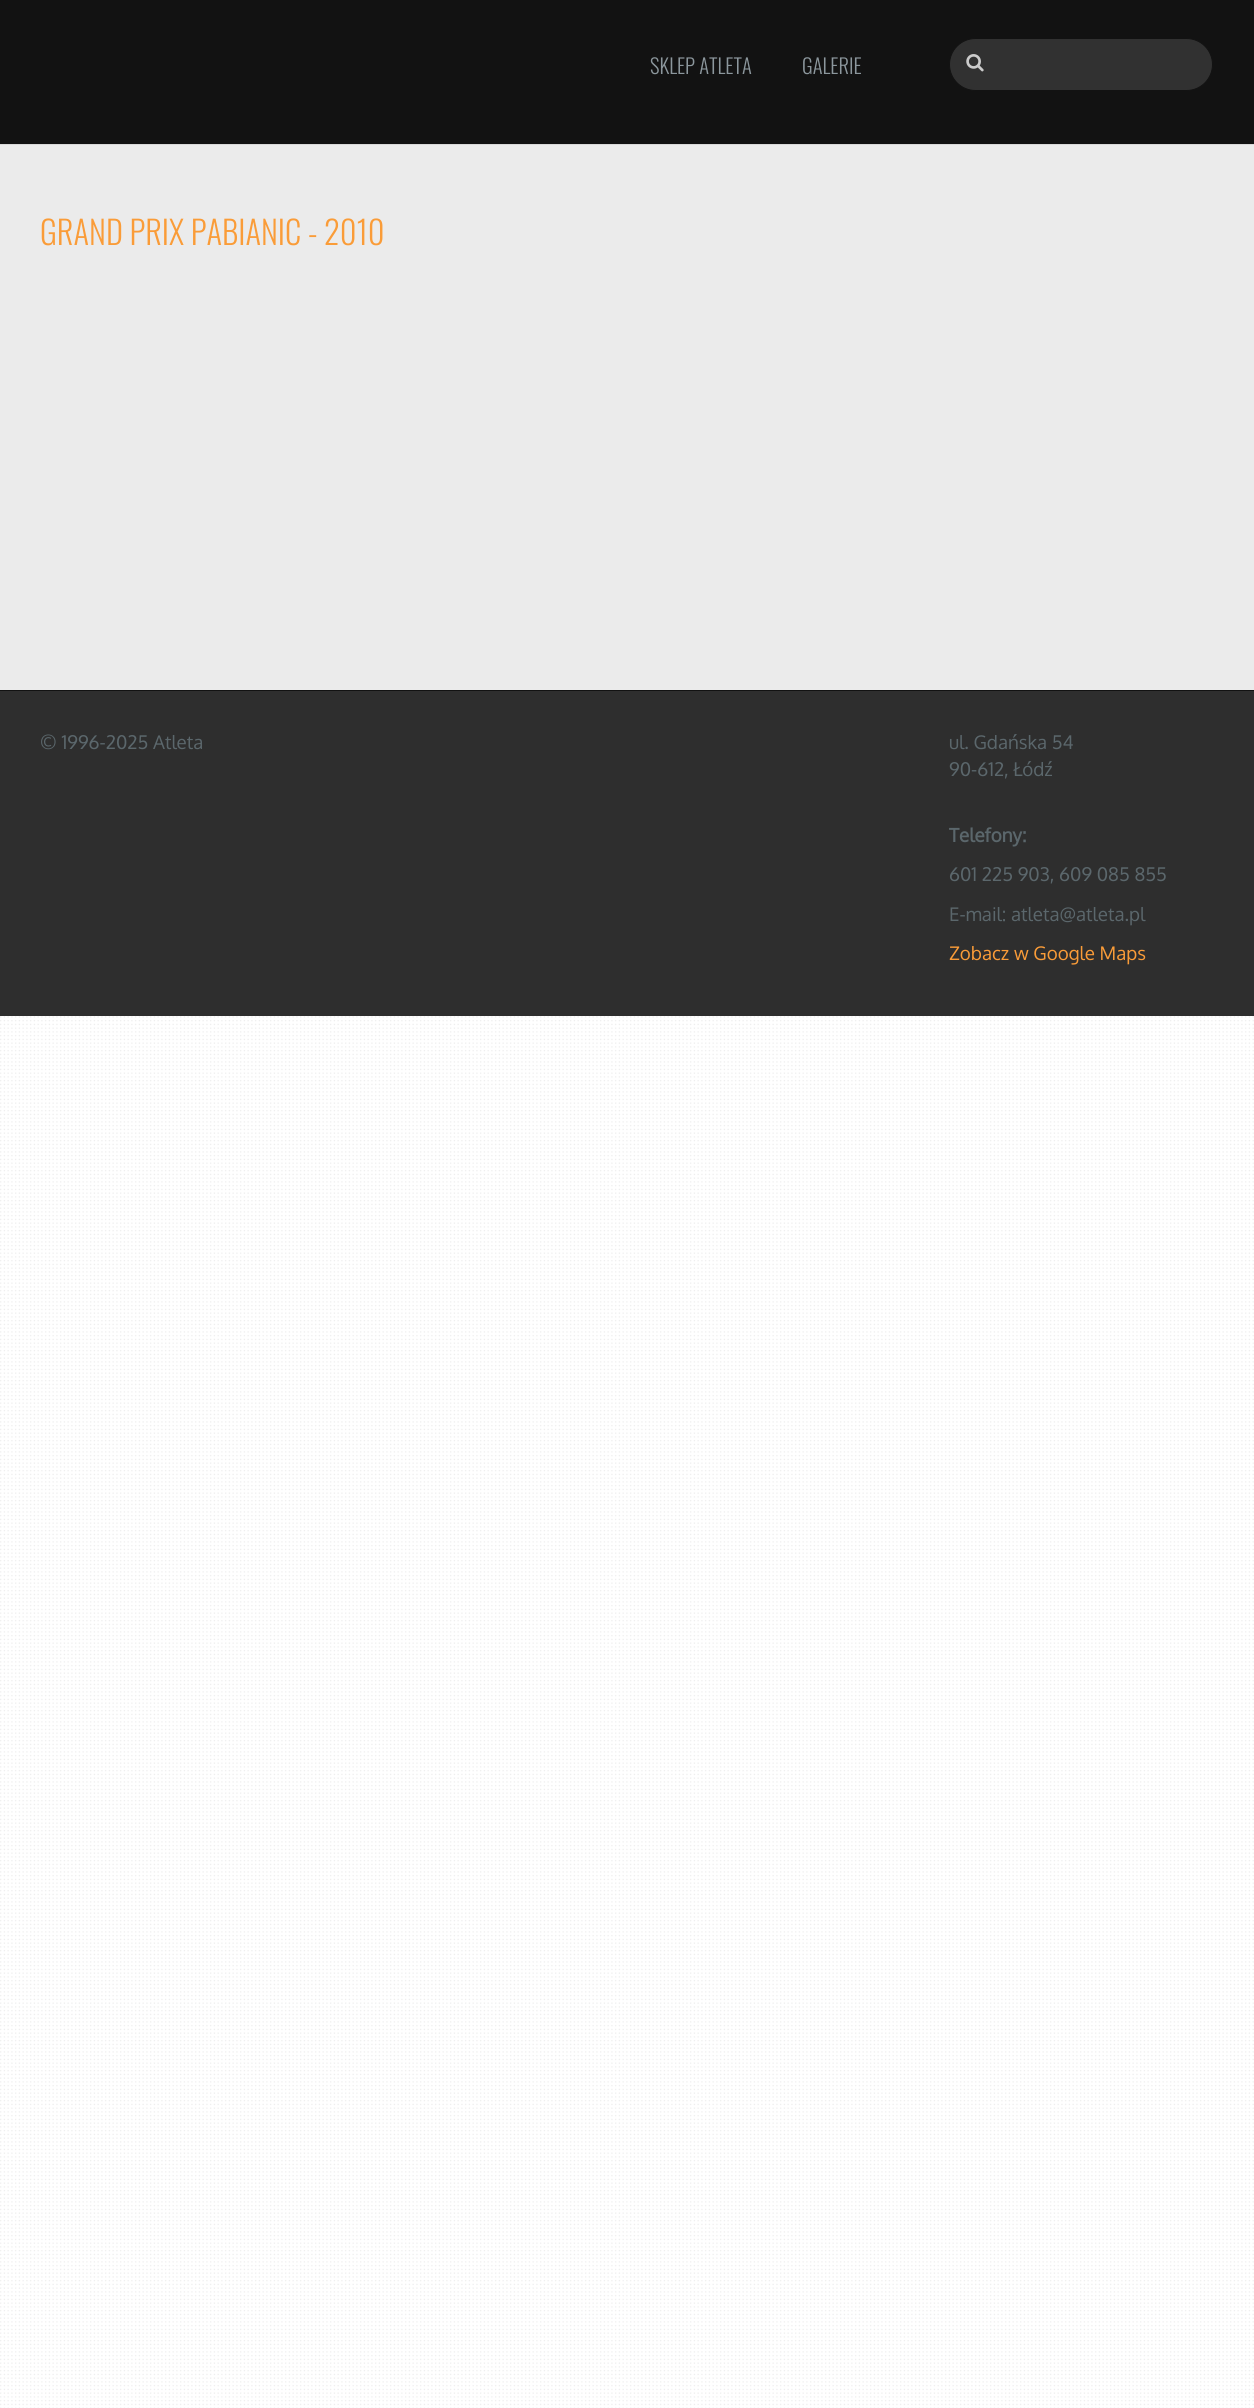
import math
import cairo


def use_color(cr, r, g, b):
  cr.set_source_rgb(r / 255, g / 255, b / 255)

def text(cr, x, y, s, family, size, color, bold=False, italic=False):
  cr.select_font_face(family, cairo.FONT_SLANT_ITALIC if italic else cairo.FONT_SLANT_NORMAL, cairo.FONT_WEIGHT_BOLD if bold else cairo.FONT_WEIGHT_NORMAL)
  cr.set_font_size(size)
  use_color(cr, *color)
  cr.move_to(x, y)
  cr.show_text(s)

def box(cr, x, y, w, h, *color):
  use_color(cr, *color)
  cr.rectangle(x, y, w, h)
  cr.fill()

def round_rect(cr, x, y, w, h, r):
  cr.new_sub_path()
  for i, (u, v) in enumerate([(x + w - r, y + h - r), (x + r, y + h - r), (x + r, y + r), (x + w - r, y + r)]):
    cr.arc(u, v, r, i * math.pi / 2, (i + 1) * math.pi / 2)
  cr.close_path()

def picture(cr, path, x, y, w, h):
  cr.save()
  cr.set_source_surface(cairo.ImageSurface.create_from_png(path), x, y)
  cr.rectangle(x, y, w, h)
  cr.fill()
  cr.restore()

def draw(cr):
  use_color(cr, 255, 255, 255)
  cr.paint()
  picture(cr, "img_01.png", 0, 1016, 1254, 1392)
  box(cr, 0, 0, 1254, 144, 18, 18, 18)
  box(cr, 0, 144, 1254, 1, 217, 217, 217)
  use_color(cr, 49, 49, 49)
  round_rect(cr, 949.5, 38.5, 263, 52, 26)
  cr.fill_preserve()
  use_color(cr, 18, 18, 18)
  cr.set_line_width(1)
  cr.stroke()
  picture(cr, "img_02.png", 966, 54, 18, 18)
  box(cr, 0, 145, 1254, 545, 235, 235, 235)
  box(cr, 0, 691, 1254, 325, 46, 46, 46)
  box(cr, 0, 690, 1254, 1, 18, 18, 18)
  text(cr, 650, 74, "SKLEP ATLETA", "Oswald Light", 20.5, (140, 151, 157))
  text(cr, 802, 74, "GALERIE", "Oswald Light", 20.5, (140, 151, 157))
  text(cr, 40, 245, "GRAND PRIX PABIANIC - 2010", "Oswald Light", 32.5, (250, 156, 56))
  text(cr, 40, 749, "© 1996-2025 Atleta", "Oxygen", 18.75, (91, 103, 108))
  text(cr, 949, 749, "ul. Gdańska 54", "Oxygen", 18.75, (91, 103, 108))
  text(cr, 949, 776, "90-612, Łódź", "Oxygen", 18.75, (91, 103, 108))
  text(cr, 949, 842, "Telefony:", "Oxygen", 18.75, (91, 103, 108), bold=True)
  text(cr, 949, 881, "601 225 903, 609 085 855", "Oxygen", 18.75, (91, 103, 108))
  text(cr, 949, 921, "E-mail: atleta@atleta.pl", "Oxygen", 18.75, (91, 103, 108))
  text(cr, 949, 960, "Zobacz w Google Maps", "Oxygen", 18.75, (250, 156, 56))


surface = cairo.ImageSurface(cairo.FORMAT_RGB24, 1254, 2408)
cr = cairo.Context(surface)
options = cairo.FontOptions()
options.set_hint_metrics(cairo.HINT_METRICS_OFF)
options.set_hint_style(cairo.HINT_STYLE_NONE)
cr.set_font_options(options)
cr.set_miter_limit(4)
draw(cr)
surface.write_to_png("out.png")
